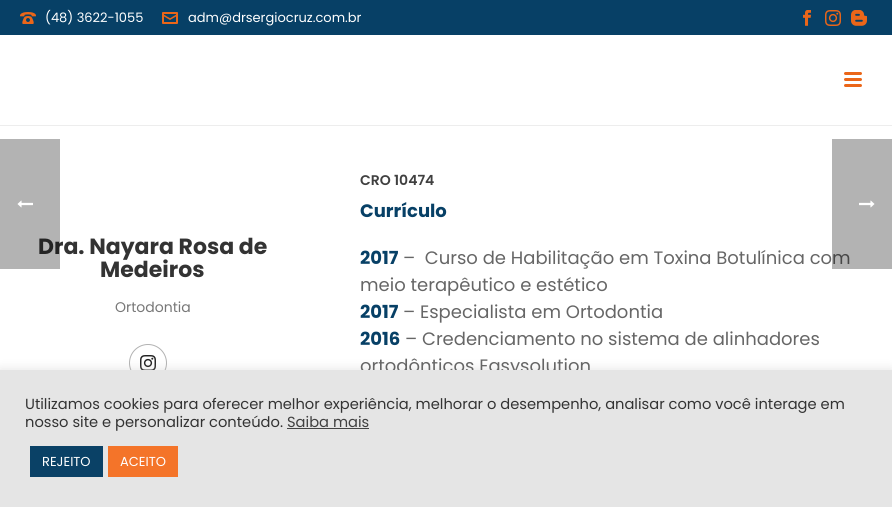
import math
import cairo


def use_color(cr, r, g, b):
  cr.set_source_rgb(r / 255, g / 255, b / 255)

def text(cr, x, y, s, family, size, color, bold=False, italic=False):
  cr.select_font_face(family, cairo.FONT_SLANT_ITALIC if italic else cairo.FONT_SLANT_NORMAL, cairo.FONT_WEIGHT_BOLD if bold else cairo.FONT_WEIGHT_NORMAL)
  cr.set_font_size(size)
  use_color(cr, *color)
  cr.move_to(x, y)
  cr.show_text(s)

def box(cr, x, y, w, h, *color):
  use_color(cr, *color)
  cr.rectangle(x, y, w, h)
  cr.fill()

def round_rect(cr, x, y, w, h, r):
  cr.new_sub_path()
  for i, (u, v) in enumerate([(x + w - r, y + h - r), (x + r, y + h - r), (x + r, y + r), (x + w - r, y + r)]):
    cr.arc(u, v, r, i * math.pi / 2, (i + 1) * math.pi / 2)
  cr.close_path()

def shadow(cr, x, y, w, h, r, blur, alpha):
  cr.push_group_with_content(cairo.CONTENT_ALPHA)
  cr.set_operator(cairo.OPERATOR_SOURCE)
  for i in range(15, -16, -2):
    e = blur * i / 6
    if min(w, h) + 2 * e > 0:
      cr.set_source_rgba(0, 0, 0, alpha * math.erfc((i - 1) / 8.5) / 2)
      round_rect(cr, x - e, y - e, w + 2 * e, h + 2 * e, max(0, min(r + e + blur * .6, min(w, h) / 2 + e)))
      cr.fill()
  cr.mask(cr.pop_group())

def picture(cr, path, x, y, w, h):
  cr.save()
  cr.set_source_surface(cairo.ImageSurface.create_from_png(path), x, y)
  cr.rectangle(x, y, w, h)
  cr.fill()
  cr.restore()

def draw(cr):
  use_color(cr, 255, 255, 255)
  cr.paint()
  box(cr, 0, 125, 892, 1, 237, 237, 237)
  box(cr, 0, 0, 892, 35, 7, 64, 102)
  picture(cr, "img_02.png", 20, 12, 16, 12)
  picture(cr, "img_03.png", 162, 12, 16, 12)
  picture(cr, "img_04.png", 803, 10, 8, 16)
  picture(cr, "img_05.png", 825, 10, 16, 16)
  picture(cr, "img_06.png", 851, 10, 16, 16)
  use_color(cr, 235, 102, 25)
  round_rect(cr, 844, 72, 18, 3, 1.5)
  cr.fill()
  round_rect(cr, 844, 78, 18, 3, 1.5)
  cr.fill()
  round_rect(cr, 844, 84, 18, 3, 1.5)
  cr.fill()
  cr.arc(148, 363, 18.5, 0, 2 * math.pi)
  use_color(cr, 178, 178, 178)
  cr.set_line_width(1)
  cr.stroke()
  picture(cr, "img_07.png", 140, 355, 16, 15)
  use_color(cr, 172, 171, 171)
  shadow(cr, 0, 369, 892, 137, 0, 5, 0.3)
  text(cr, 45, 22, "(48) 3622-1055", "Poppins", 13, (255, 255, 255))
  text(cr, 188, 22, "adm@drsergiocruz.com.br", "Poppins", 13, (255, 255, 255))
  text(cr, 38, 254, "Dra. Nayara Rosa de", "Poppins", 22, (51, 51, 51), bold=True)
  cr.set_source_rgba(0, 0, 0, 0.3)
  cr.rectangle(0, 139, 60, 130)
  cr.fill()
  picture(cr, "img_01.png", 17, 200, 16, 8)
  text(cr, 100, 277, "Medeiros", "Poppins", 22, (51, 51, 51), bold=True)
  text(cr, 115, 312, "Ortodontia", "Poppins", 14, (119, 119, 119))
  text(cr, 360, 185, "CRO 10474", "Poppins SemiBold", 14, (64, 64, 64))
  text(cr, 360, 217, "Currículo", "Poppins", 18, (7, 64, 102), bold=True)
  text(cr, 360, 264, "2017", "Poppins", 18, (7, 64, 102), bold=True)
  text(cr, 403, 264, "–  Curso de Habilitação em Toxina Botulínica com", "Poppins", 18, (102, 102, 102))
  text(cr, 360, 291, "meio terapêutico e estético", "Poppins", 18, (102, 102, 102))
  text(cr, 360, 318, "2017", "Poppins", 18, (7, 64, 102), bold=True)
  text(cr, 403, 318, "– Especialista em Ortodontia", "Poppins", 18, (102, 102, 102))
  text(cr, 360, 345, "2016", "Poppins", 18, (7, 64, 102), bold=True)
  text(cr, 405, 345, "– Credenciamento no sistema de alinhadores", "Poppins", 18, (102, 102, 102))
  text(cr, 360, 372, "ortodônticos Easysolution", "Poppins", 18, (102, 102, 102))
  cr.set_source_rgba(0, 0, 0, 0.3)
  cr.rectangle(832, 139, 60, 130)
  cr.fill()
  picture(cr, "img_08.png", 859, 200, 16, 8)
  box(cr, 0, 370, 892, 137, 229, 229, 229)
  text(cr, 25, 409, "Utilizamos cookies para oferecer melhor experiência, melhorar o desempenho, analisar como você interage em", "Poppins", 14.67, (51, 51, 51))
  text(cr, 25, 427, "nosso site e personalizar conteúdo.", "Poppins", 14.67, (51, 51, 51))
  text(cr, 287, 427, "Saiba mais", "Poppins", 14.67, (64, 64, 64))
  box(cr, 287, 428, 82, 1, 68, 68, 68)
  box(cr, 30, 446, 73, 31, 10, 65, 102)
  text(cr, 42, 466, "REJEITO", "Poppins", 13, (255, 255, 255))
  box(cr, 108, 446, 70, 31, 244, 116, 41)
  text(cr, 120, 466, "ACEITO", "Poppins", 13, (255, 255, 255))


surface = cairo.ImageSurface(cairo.FORMAT_RGB24, 892, 507)
cr = cairo.Context(surface)
options = cairo.FontOptions()
options.set_hint_metrics(cairo.HINT_METRICS_OFF)
options.set_hint_style(cairo.HINT_STYLE_NONE)
cr.set_font_options(options)
cr.set_miter_limit(4)
draw(cr)
surface.write_to_png("out.png")
